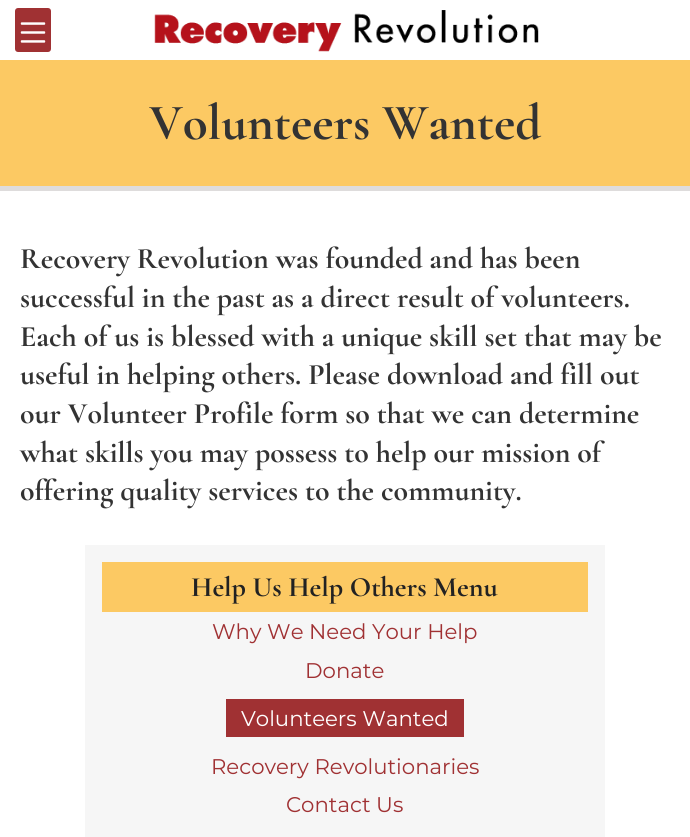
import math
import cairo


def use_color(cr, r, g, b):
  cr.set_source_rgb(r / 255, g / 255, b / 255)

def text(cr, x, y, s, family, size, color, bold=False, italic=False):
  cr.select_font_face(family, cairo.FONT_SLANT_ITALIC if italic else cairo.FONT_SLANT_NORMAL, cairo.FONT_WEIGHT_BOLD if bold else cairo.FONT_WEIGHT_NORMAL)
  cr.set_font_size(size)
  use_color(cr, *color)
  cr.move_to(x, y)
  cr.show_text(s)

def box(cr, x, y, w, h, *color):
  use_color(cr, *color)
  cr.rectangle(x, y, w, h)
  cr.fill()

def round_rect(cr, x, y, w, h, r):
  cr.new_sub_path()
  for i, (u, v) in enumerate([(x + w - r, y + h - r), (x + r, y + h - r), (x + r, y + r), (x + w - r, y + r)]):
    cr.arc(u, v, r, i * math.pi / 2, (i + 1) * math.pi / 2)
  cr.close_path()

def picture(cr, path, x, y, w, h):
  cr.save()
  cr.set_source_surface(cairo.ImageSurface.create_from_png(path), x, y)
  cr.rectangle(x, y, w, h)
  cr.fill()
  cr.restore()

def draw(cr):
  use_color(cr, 255, 255, 255)
  cr.paint()
  use_color(cr, 160, 49, 51)
  round_rect(cr, 15, 8, 36, 44, 3)
  cr.fill()
  picture(cr, "img_01.png", 20, 22, 26, 21)
  picture(cr, "img_02.png", 154, 10, 385, 42)
  box(cr, 0, 60, 690, 126, 252, 201, 99)
  box(cr, 0, 186, 690, 5, 222, 220, 220)
  box(cr, 85, 545, 520, 292, 246, 246, 246)
  box(cr, 102, 562, 486, 50, 252, 201, 99)
  box(cr, 226, 699, 238, 38, 160, 49, 51)
  text(cr, 149, 139, "Volunteers Wanted", "Cormorant Garamond", 51, (51, 51, 51), bold=True)
  text(cr, 20, 268, "Recovery Revolution was founded and has been", "Cormorant Garamond", 29.75, (51, 51, 51), bold=True)
  text(cr, 20, 307, "successful in the past as a direct result of volunteers.", "Cormorant Garamond", 29.75, (51, 51, 51), bold=True)
  text(cr, 20, 346, "Each of us is blessed with a unique skill set that may be", "Cormorant Garamond", 29.75, (51, 51, 51), bold=True)
  text(cr, 20, 384, "useful in helping others. Please download and fill out", "Cormorant Garamond", 29.75, (51, 51, 51), bold=True)
  text(cr, 20, 423, "our Volunteer Profile form so that we can determine", "Cormorant Garamond", 29.75, (51, 51, 51), bold=True)
  text(cr, 20, 462, "what skills you may possess to help our mission of", "Cormorant Garamond", 29.75, (51, 51, 51), bold=True)
  text(cr, 20, 500, "offering quality services to the community.", "Cormorant Garamond", 29.75, (51, 51, 51), bold=True)
  text(cr, 191, 596, "Help Us Help Others Menu", "Cormorant Garamond", 28, (34, 34, 34), bold=True)
  text(cr, 212, 639, "Why We Need Your Help", "Montserrat", 21.25, (160, 49, 51))
  text(cr, 305, 678, "Donate", "Montserrat", 21.25, (160, 49, 51))
  text(cr, 241, 726, "Volunteers Wanted", "Montserrat", 21.25, (255, 255, 255))
  text(cr, 211, 774, "Recovery Revolutionaries", "Montserrat", 21.25, (160, 49, 51))
  text(cr, 286, 812, "Contact Us", "Montserrat", 21.25, (160, 49, 51))


surface = cairo.ImageSurface(cairo.FORMAT_RGB24, 690, 837)
cr = cairo.Context(surface)
options = cairo.FontOptions()
options.set_hint_metrics(cairo.HINT_METRICS_OFF)
options.set_hint_style(cairo.HINT_STYLE_NONE)
cr.set_font_options(options)
cr.set_miter_limit(4)
draw(cr)
surface.write_to_png("out.png")
